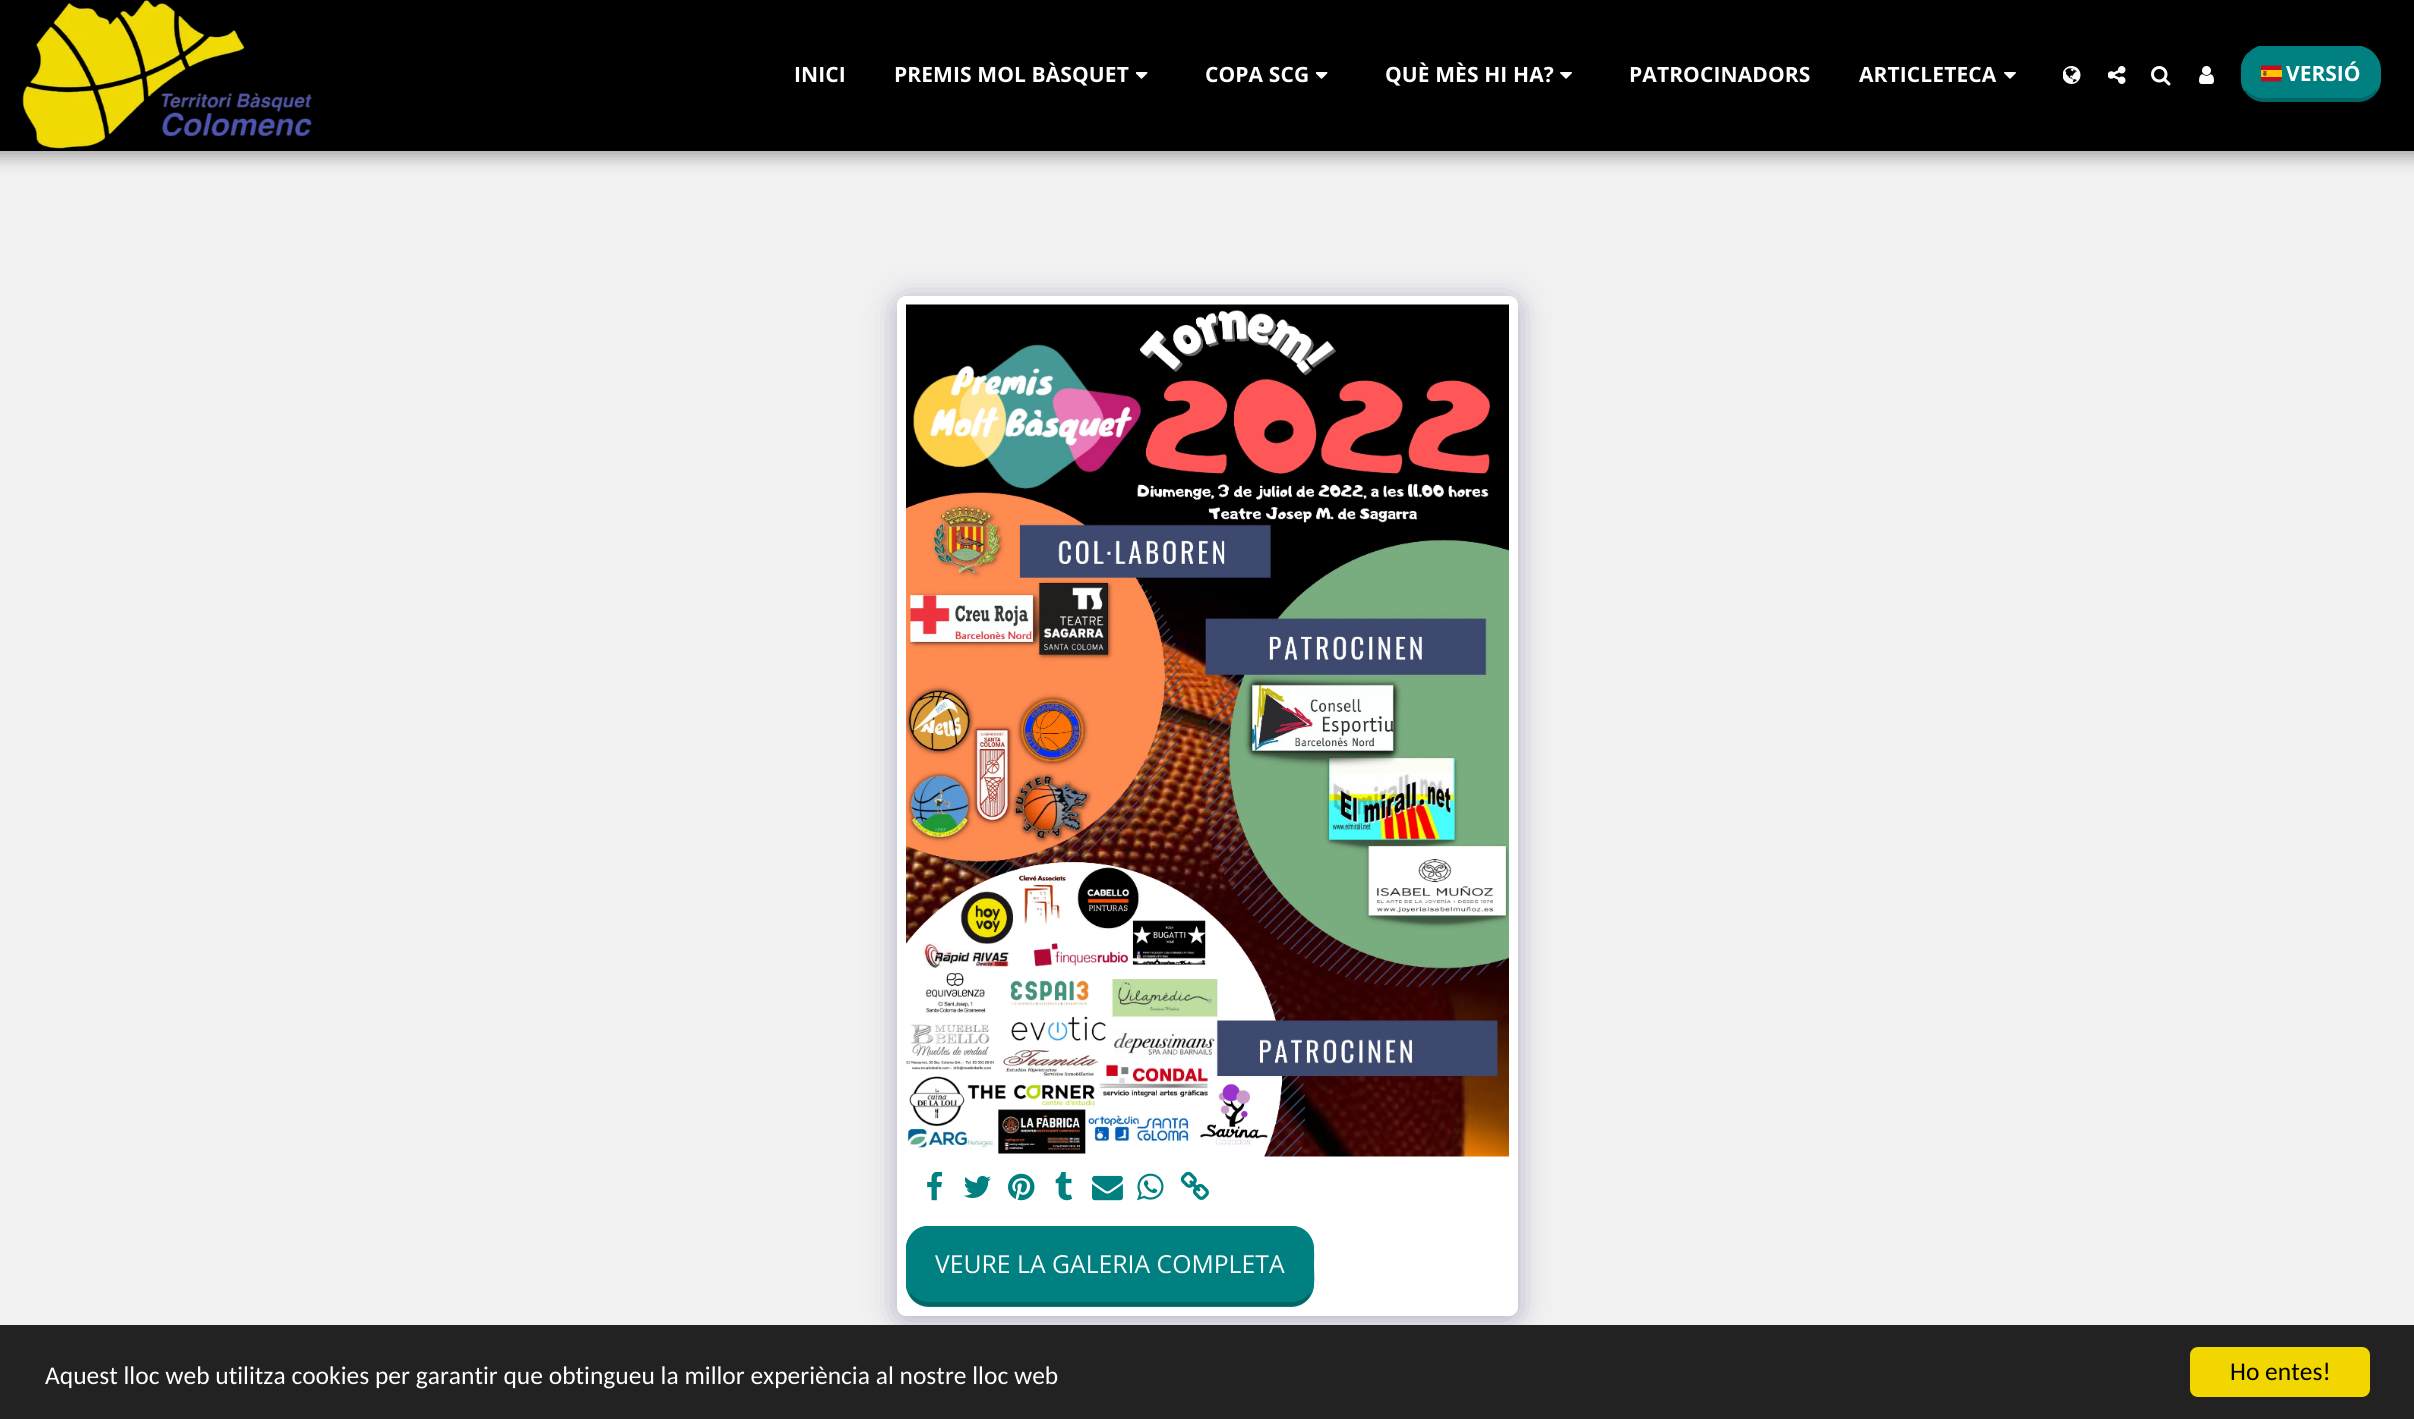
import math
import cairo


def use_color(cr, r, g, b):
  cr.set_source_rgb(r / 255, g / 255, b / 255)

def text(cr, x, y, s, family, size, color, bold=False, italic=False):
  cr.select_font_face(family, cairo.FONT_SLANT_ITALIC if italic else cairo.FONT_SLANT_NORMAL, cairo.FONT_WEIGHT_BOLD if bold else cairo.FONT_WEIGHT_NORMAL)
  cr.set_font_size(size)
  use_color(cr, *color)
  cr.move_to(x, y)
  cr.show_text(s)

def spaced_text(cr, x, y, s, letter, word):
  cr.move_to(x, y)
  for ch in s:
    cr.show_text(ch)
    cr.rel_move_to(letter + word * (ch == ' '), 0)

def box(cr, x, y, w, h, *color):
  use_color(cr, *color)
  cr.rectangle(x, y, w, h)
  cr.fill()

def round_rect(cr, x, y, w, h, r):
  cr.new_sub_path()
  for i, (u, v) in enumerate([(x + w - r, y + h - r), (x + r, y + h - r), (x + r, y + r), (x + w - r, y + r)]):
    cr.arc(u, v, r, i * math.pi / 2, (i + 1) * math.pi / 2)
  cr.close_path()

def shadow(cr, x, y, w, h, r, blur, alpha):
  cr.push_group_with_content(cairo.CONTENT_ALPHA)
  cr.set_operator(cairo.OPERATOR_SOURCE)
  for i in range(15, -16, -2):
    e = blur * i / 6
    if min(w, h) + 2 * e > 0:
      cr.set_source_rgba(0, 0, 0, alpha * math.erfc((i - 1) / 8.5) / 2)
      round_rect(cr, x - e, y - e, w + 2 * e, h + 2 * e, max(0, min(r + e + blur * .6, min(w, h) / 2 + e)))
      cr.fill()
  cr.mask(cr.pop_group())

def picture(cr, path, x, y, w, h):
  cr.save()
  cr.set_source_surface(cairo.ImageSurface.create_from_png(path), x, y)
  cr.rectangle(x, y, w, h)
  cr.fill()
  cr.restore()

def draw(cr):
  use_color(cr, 242, 242, 242)
  cr.paint()
  use_color(cr, 0, 0, 0)
  shadow(cr, -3, 0, 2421, 156, 0, 9, 0.35)
  box(cr, 0, 0, 2414, 151, 0, 0, 0)
  picture(cr, "img_01.png", 22, 0, 290, 149)
  picture(cr, "img_02.png", 1136, 72, 12, 7)
  picture(cr, "img_02.png", 1316, 72, 12, 7)
  picture(cr, "img_03.png", 1560, 72, 12, 7)
  picture(cr, "img_03.png", 2004, 72, 12, 7)
  picture(cr, "img_04.png", 2063, 66, 18, 18)
  picture(cr, "img_05.png", 2108, 66, 18, 18)
  picture(cr, "img_06.png", 2151, 66, 20, 20)
  picture(cr, "img_07.png", 2199, 66, 15, 18)
  use_color(cr, 0, 128, 128)
  round_rect(cr, 2241, 47, 140, 55, 23)
  cr.fill()
  cr.new_path()
  cr.move_to(2264, 48)
  cr.curve_to(2258, 48, 2252, 50, 2248, 54)
  cr.line_to(2248, 53)
  cr.curve_to(2251, 50, 2255, 47, 2259, 46)
  cr.line_to(2362, 46)
  cr.curve_to(2367, 48, 2371, 50, 2374, 53)
  cr.line_to(2373, 54)
  cr.curve_to(2369, 50, 2364, 48, 2358, 48)
  cr.close_path()
  cr.fill()
  cr.new_path()
  cr.move_to(2373.5, 53.5)
  cr.curve_to(2377.5, 57.5, 2380, 63, 2380, 69)
  cr.line_to(2380, 80)
  cr.curve_to(2380, 84, 2379, 88, 2377, 91)
  cr.line_to(2376, 89)
  cr.curve_to(2378, 86, 2379, 83, 2379, 80)
  cr.line_to(2379, 69)
  cr.curve_to(2379, 63, 2377, 58, 2373, 54)
  cr.close_path()
  cr.fill()
  cr.set_source_rgba(0, 0, 0, 0.2)
  cr.new_path()
  cr.move_to(2264, 102)
  cr.line_to(2358, 102)
  cr.curve_to(2366, 102, 2373, 98, 2377, 91)
  cr.line_to(2376, 89)
  cr.curve_to(2373, 94, 2366, 98, 2358, 98)
  cr.line_to(2264, 98)
  cr.curve_to(2256, 98, 2249, 94, 2245, 89)
  cr.line_to(2244, 92)
  cr.curve_to(2248, 98, 2256, 102, 2264, 102)
  cr.close_path()
  cr.fill()
  use_color(cr, 0, 128, 128)
  cr.new_path()
  cr.move_to(2241, 69)
  cr.curve_to(2241, 76.5, 2240, 85, 2244.5, 91.5)
  cr.line_to(2245.5, 89)
  cr.curve_to(2243, 86.5, 2242, 83, 2242, 80)
  cr.line_to(2242, 69)
  cr.curve_to(2242, 63, 2244.5, 58, 2248.5, 54)
  cr.line_to(2247.5, 53)
  cr.curve_to(2243.5, 57.5, 2241, 63, 2241, 69)
  cr.close_path()
  cr.fill()
  picture(cr, "img_08.png", 2261, 65, 21, 17)
  use_color(cr, 77, 63, 122)
  shadow(cr, 897, 300, 621, 1020, 9, 15, 0.4)
  use_color(cr, 255, 255, 255)
  round_rect(cr, 897, 296, 621, 1020, 9)
  cr.fill()
  picture(cr, "img_09.png", 906, 304, 603, 853)
  picture(cr, "img_10.png", 927, 1172, 16, 29)
  picture(cr, "img_11.png", 964, 1175, 27, 23)
  picture(cr, "img_12.png", 1008, 1173, 27, 28)
  picture(cr, "img_13.png", 1055, 1172, 18, 29)
  picture(cr, "img_14.png", 1092, 1175, 31, 26)
  picture(cr, "img_15.png", 1137, 1173, 27, 28)
  picture(cr, "img_16.png", 1181, 1172, 28, 28)
  use_color(cr, 0, 128, 128)
  round_rect(cr, 906, 1226, 408, 81, 23)
  cr.fill()
  cr.new_path()
  cr.move_to(928, 1226)
  cr.curve_to(922, 1226, 917, 1228, 913, 1232)
  cr.line_to(914, 1233)
  cr.curve_to(917, 1229, 922, 1227, 928, 1227)
  cr.line_to(1292, 1227)
  cr.curve_to(1298, 1227, 1303, 1229, 1306, 1233)
  cr.line_to(1307, 1232)
  cr.curve_to(1303, 1228, 1298, 1226, 1292, 1226)
  cr.close_path()
  cr.fill()
  cr.new_path()
  cr.move_to(1307, 1232)
  cr.curve_to(1316, 1241, 1314, 1254, 1314, 1266)
  cr.curve_to(1314, 1276, 1316, 1287, 1310, 1296)
  cr.line_to(1309, 1293)
  cr.curve_to(1311, 1290, 1312, 1287, 1312, 1284)
  cr.line_to(1312, 1248)
  cr.curve_to(1312, 1242, 1310, 1237, 1306, 1233)
  cr.close_path()
  cr.fill()
  cr.set_source_rgba(0, 0, 0, 0.2)
  cr.new_path()
  cr.move_to(1310, 1296)
  cr.curve_to(1307, 1302, 1300, 1306, 1292, 1306)
  cr.line_to(928, 1306)
  cr.curve_to(920, 1306, 913, 1302, 910, 1296)
  cr.line_to(911, 1293)
  cr.curve_to(914, 1298, 921, 1302, 928, 1302)
  cr.line_to(1292, 1302)
  cr.curve_to(1299, 1302, 1306, 1298, 1309, 1293)
  cr.close_path()
  cr.fill()
  use_color(cr, 0, 128, 128)
  cr.new_path()
  cr.move_to(906, 1248)
  cr.line_to(906, 1284)
  cr.curve_to(906, 1288, 907, 1292, 910, 1296)
  cr.line_to(911, 1293)
  cr.curve_to(909, 1290, 908, 1287, 908, 1284)
  cr.line_to(908, 1248)
  cr.curve_to(908, 1242, 910, 1237, 914, 1233)
  cr.line_to(913, 1232)
  cr.curve_to(909, 1236, 906, 1242, 906, 1248)
  cr.close_path()
  cr.fill()
  box(cr, 0, 1325, 2414, 94, 34, 34, 34)
  use_color(cr, 241, 214, 0)
  round_rect(cr, 2190, 1347, 180, 50, 8)
  cr.fill()
  cr.select_font_face("Open Sans", cairo.FONT_SLANT_NORMAL, cairo.FONT_WEIGHT_BOLD)
  cr.set_font_size(21)
  use_color(cr, 255, 255, 255)
  spaced_text(cr, 794, 82, "INICI", 0.1, 0)
  spaced_text(cr, 894, 82, "PREMIS MOL BÀSQUET", 0.1, 0)
  spaced_text(cr, 1205, 82, "COPA SCG", 0.1, 0)
  spaced_text(cr, 1385, 82, "QUÈ MÈS HI HA?", 0.1, 0)
  spaced_text(cr, 1629, 82, "PATROCINADORS", 0.1, 0)
  spaced_text(cr, 1859, 82, "ARTICLETECA", 0.1, 0)
  text(cr, 2286, 81, "VERSIÓ", "Open Sans", 21, (255, 255, 255), bold=True)
  text(cr, 935, 1273, "VEURE LA GALERIA COMPLETA", "Open Sans", 24.75, (255, 255, 255))
  text(cr, 45, 1384, "Aquest lloc web utilitza cookies per garantir que obtingueu la millor experiència al nostre lloc web", "Carlito", 25.5, (255, 255, 255))
  text(cr, 2230, 1380, "Ho entes!", "Carlito", 25.5, (0, 0, 0))


surface = cairo.ImageSurface(cairo.FORMAT_RGB24, 2414, 1419)
cr = cairo.Context(surface)
options = cairo.FontOptions()
options.set_hint_metrics(cairo.HINT_METRICS_OFF)
options.set_hint_style(cairo.HINT_STYLE_NONE)
cr.set_font_options(options)
cr.set_miter_limit(4)
draw(cr)
surface.write_to_png("out.png")
